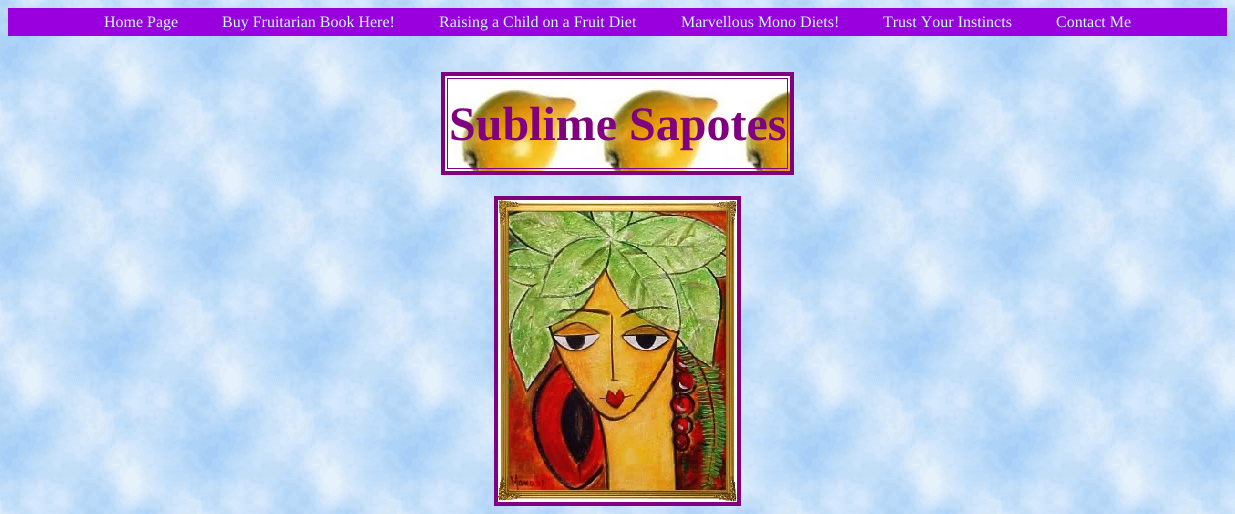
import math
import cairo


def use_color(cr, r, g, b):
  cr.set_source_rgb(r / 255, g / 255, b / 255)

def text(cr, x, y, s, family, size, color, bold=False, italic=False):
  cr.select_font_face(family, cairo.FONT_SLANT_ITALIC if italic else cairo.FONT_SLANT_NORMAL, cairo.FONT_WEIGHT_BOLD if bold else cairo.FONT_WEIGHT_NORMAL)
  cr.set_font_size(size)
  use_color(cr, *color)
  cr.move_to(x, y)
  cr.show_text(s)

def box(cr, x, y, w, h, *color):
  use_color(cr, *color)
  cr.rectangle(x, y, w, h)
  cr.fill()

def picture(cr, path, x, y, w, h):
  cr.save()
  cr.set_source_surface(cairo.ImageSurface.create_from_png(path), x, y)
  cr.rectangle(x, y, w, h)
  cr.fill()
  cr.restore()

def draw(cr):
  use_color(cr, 255, 255, 255)
  cr.paint()
  picture(cr, "img_01.png", 0, 0, 1235, 514)
  box(cr, 8, 8, 1219, 28, 153, 0, 221)
  picture(cr, "img_02.png", 445, 76, 345, 95)
  cr.rectangle(443, 74, 349, 99)
  use_color(cr, 128, 0, 128)
  cr.set_line_width(4)
  cr.stroke()
  cr.rectangle(447.5, 78.5, 340, 90)
  cr.set_line_width(1)
  cr.stroke()
  cr.rectangle(496, 198, 243, 306)
  cr.set_line_width(4)
  cr.stroke()
  picture(cr, "img_03.png", 498, 200, 239, 302)
  text(cr, 104, 27, "Home Page", "Liberation Serif", 16, (204, 255, 238))
  text(cr, 222, 27, "Buy Fruitarian Book Here!", "Liberation Serif", 16, (204, 255, 238))
  text(cr, 439, 27, "Raising a Child on a Fruit Diet", "Liberation Serif", 16, (204, 255, 238))
  text(cr, 681, 27, "Marvellous Mono Diets!", "Liberation Serif", 16, (204, 255, 238))
  text(cr, 883, 27, "Trust Your Instincts", "Liberation Serif", 16, (204, 255, 238))
  text(cr, 1056, 27, "Contact Me", "Liberation Serif", 16, (204, 255, 238))
  text(cr, 449, 140, "Sublime Sapotes", "Liberation Serif", 48, (128, 0, 128), bold=True)


surface = cairo.ImageSurface(cairo.FORMAT_RGB24, 1235, 514)
cr = cairo.Context(surface)
options = cairo.FontOptions()
options.set_hint_metrics(cairo.HINT_METRICS_OFF)
options.set_hint_style(cairo.HINT_STYLE_NONE)
cr.set_font_options(options)
cr.set_miter_limit(4)
draw(cr)
surface.write_to_png("out.png")
